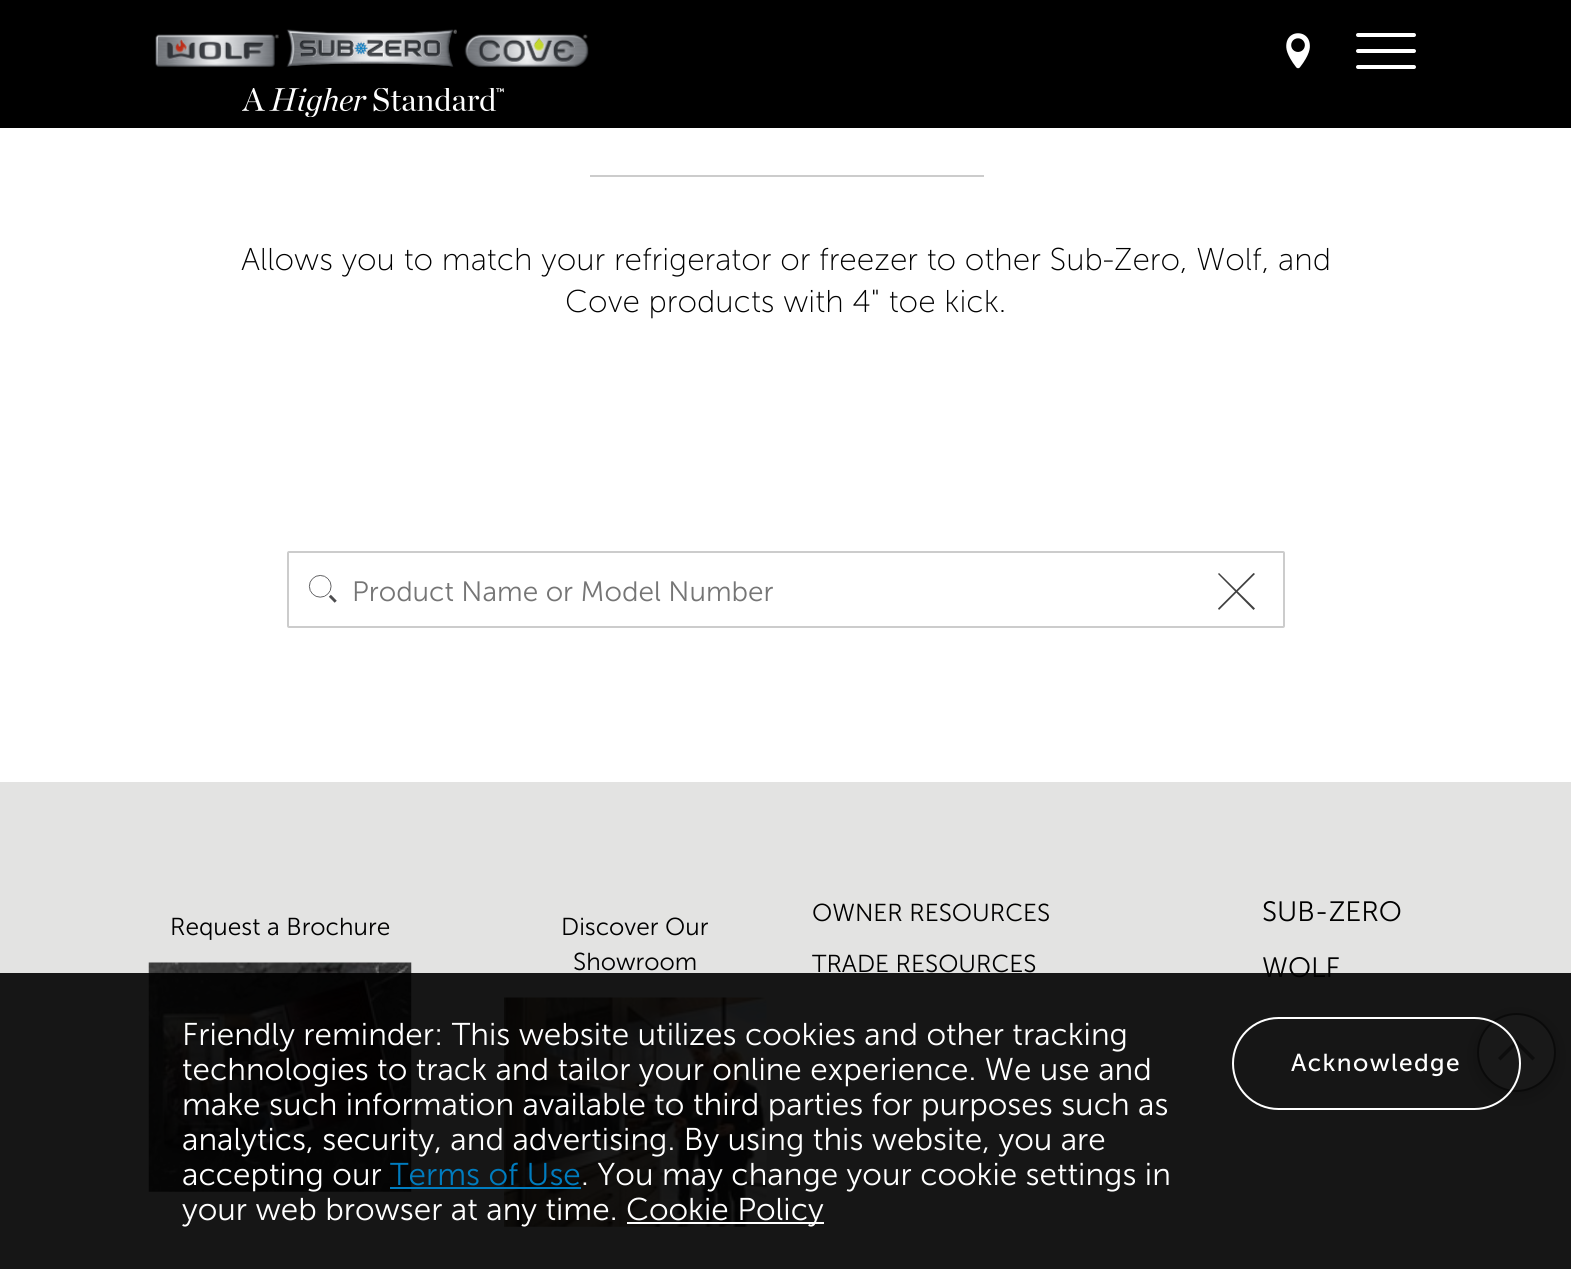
import math
import cairo


def use_color(cr, r, g, b):
  cr.set_source_rgb(r / 255, g / 255, b / 255)

def text(cr, x, y, s, family, size, color, bold=False, italic=False):
  cr.select_font_face(family, cairo.FONT_SLANT_ITALIC if italic else cairo.FONT_SLANT_NORMAL, cairo.FONT_WEIGHT_BOLD if bold else cairo.FONT_WEIGHT_NORMAL)
  cr.set_font_size(size)
  use_color(cr, *color)
  cr.move_to(x, y)
  cr.show_text(s)

def spaced_text(cr, x, y, s, letter, word):
  cr.move_to(x, y)
  for ch in s:
    cr.show_text(ch)
    cr.rel_move_to(letter + word * (ch == ' '), 0)

def box(cr, x, y, w, h, *color):
  use_color(cr, *color)
  cr.rectangle(x, y, w, h)
  cr.fill()

def round_rect(cr, x, y, w, h, r):
  cr.new_sub_path()
  for i, (u, v) in enumerate([(x + w - r, y + h - r), (x + r, y + h - r), (x + r, y + r), (x + w - r, y + r)]):
    cr.arc(u, v, r, i * math.pi / 2, (i + 1) * math.pi / 2)
  cr.close_path()

def shadow(cr, x, y, w, h, r, blur, alpha):
  cr.push_group_with_content(cairo.CONTENT_ALPHA)
  cr.set_operator(cairo.OPERATOR_SOURCE)
  for i in range(15, -16, -2):
    e = blur * i / 6
    if min(w, h) + 2 * e > 0:
      cr.set_source_rgba(0, 0, 0, alpha * math.erfc((i - 1) / 8.5) / 2)
      round_rect(cr, x - e, y - e, w + 2 * e, h + 2 * e, max(0, min(r + e + blur * .6, min(w, h) / 2 + e)))
      cr.fill()
  cr.mask(cr.pop_group())

def picture(cr, path, x, y, w, h):
  cr.save()
  cr.set_source_surface(cairo.ImageSurface.create_from_png(path), x, y)
  cr.rectangle(x, y, w, h)
  cr.fill()
  cr.restore()

def draw(cr):
  use_color(cr, 255, 255, 255)
  cr.paint()
  box(cr, 0, 0, 1571, 128, 0, 0, 0)
  picture(cr, "img_01.png", 155, 34, 124, 33)
  picture(cr, "img_02.png", 286, 29, 171, 38)
  picture(cr, "img_03.png", 464, 34, 125, 33)
  picture(cr, "img_04.png", 242, 88, 262, 29)
  picture(cr, "img_05.png", 1286, 33, 24, 36)
  use_color(cr, 255, 255, 255)
  round_rect(cr, 1356, 33, 60, 4, 2)
  cr.fill()
  round_rect(cr, 1356, 49, 60, 4, 2)
  cr.fill()
  round_rect(cr, 1356, 65, 60, 4, 2)
  cr.fill()
  box(cr, 590, 175, 394, 2, 204, 204, 204)
  round_rect(cr, 288, 552, 996, 75, 1)
  cr.stroke()
  picture(cr, "img_06.png", 308, 574, 29, 29)
  use_color(cr, 64, 64, 64)
  cr.new_path()
  cr.move_to(1253.5, 573)
  cr.line_to(1255, 574)
  cr.line_to(1219, 610)
  cr.line_to(1218, 608.5)
  cr.close_path()
  cr.fill()
  cr.new_path()
  cr.move_to(1218, 574)
  cr.line_to(1219, 573)
  cr.line_to(1255, 608.5)
  cr.line_to(1253.5, 610)
  cr.close_path()
  cr.fill()
  box(cr, 0, 782, 1571, 487, 227, 227, 226)
  picture(cr, "img_07.png", 148, 962, 264, 230)
  picture(cr, "img_08.png", 504, 997, 263, 230)
  use_color(cr, 23, 23, 23)
  shadow(cr, 1477, 1017, 79, 79, 39.5, 9, 0.25)
  use_color(cr, 252, 252, 252)
  cr.arc(1516.5, 1052.5, 38.5, 0, 2 * math.pi)
  cr.fill_preserve()
  use_color(cr, 106, 106, 105)
  cr.stroke()
  use_color(cr, 128, 128, 128)
  cr.new_path()
  cr.move_to(1500.5, 1060.5)
  cr.line_to(1498, 1058)
  cr.line_to(1516.5, 1039.5)
  cr.line_to(1519, 1042)
  cr.close_path()
  cr.fill()
  cr.new_path()
  cr.move_to(1532.5, 1060.5)
  cr.line_to(1514, 1042)
  cr.line_to(1516.5, 1039.5)
  cr.line_to(1535, 1058)
  cr.close_path()
  cr.fill()
  text(cr, 241, 270, "Allows you to match your refrigerator or freezer to other Sub-Zero, Wolf, and", "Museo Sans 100 Light", 31.5, (0, 0, 0))
  text(cr, 565, 312, "Cove products with 4\" toe kick.", "Museo Sans 100 Light", 31.5, (0, 0, 0))
  text(cr, 352, 601, "Product Name or Model Number", "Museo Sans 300 Light", 28, (117, 117, 117))
  text(cr, 170, 935, "Request a Brochure", "Museo Sans 300 Light", 24.5, (0, 0, 0))
  text(cr, 561, 935, "Discover Our", "Museo Sans 300 Light", 24.5, (0, 0, 0))
  text(cr, 573, 970, "Showroom", "Museo Sans 300 Light", 24.5, (0, 0, 0))
  text(cr, 812, 921, "OWNER RESOURCES", "Museo Sans 300 Light", 24.5, (0, 0, 0))
  text(cr, 812, 972, "TRADE RESOURCES", "Museo Sans 300 Light", 24.5, (0, 0, 0))
  text(cr, 1262, 921, "SUB-ZERO", "Museo Sans 300 Light", 28, (0, 0, 0))
  text(cr, 1262, 977, "WOLF", "Museo Sans 300 Light", 28, (0, 0, 0))
  cr.set_source_rgba(0, 0, 0, 0.9)
  cr.rectangle(0, 973, 1571, 296)
  cr.fill()
  text(cr, 182, 1045, "Friendly reminder: This website utilizes cookies and other tracking", "Museo Sans 300 Light", 31.5, (255, 255, 255))
  text(cr, 182, 1080, "technologies to track and tailor your online experience. We use and", "Museo Sans 300 Light", 31.5, (255, 255, 255))
  text(cr, 182, 1115, "make such information available to third parties for purposes such as", "Museo Sans 300 Light", 31.5, (255, 255, 255))
  text(cr, 182, 1150, "analytics, security, and advertising. By using this website, you are", "Museo Sans 300 Light", 31.5, (255, 255, 255))
  text(cr, 182, 1185, "accepting our", "Museo Sans 300 Light", 31.5, (255, 255, 255))
  text(cr, 390, 1185, "Terms of Use", "Museo Sans 300 Light", 31.5, (0, 124, 191))
  box(cr, 390, 1187, 191, 2, 0, 124, 191)
  text(cr, 581, 1185, ". You may change your cookie settings in", "Museo Sans 300 Light", 31.5, (255, 255, 255))
  text(cr, 182, 1220, "your web browser at any time.", "Museo Sans 300 Light", 31.5, (255, 255, 255))
  box(cr, 627, 1222, 197, 2, 255, 255, 255)
  text(cr, 626, 1220, "Cookie Policy", "Museo Sans 300 Light", 31.5, (255, 255, 255))
  round_rect(cr, 1233, 1018, 287, 91, 45.5)
  cr.stroke()
  cr.select_font_face("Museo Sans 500")
  cr.set_font_size(24.5)
  spaced_text(cr, 1291, 1071, "Acknowledge", 1.4, 0)


surface = cairo.ImageSurface(cairo.FORMAT_RGB24, 1571, 1269)
cr = cairo.Context(surface)
options = cairo.FontOptions()
options.set_hint_metrics(cairo.HINT_METRICS_OFF)
options.set_hint_style(cairo.HINT_STYLE_NONE)
cr.set_font_options(options)
cr.set_miter_limit(4)
draw(cr)
surface.write_to_png("out.png")
